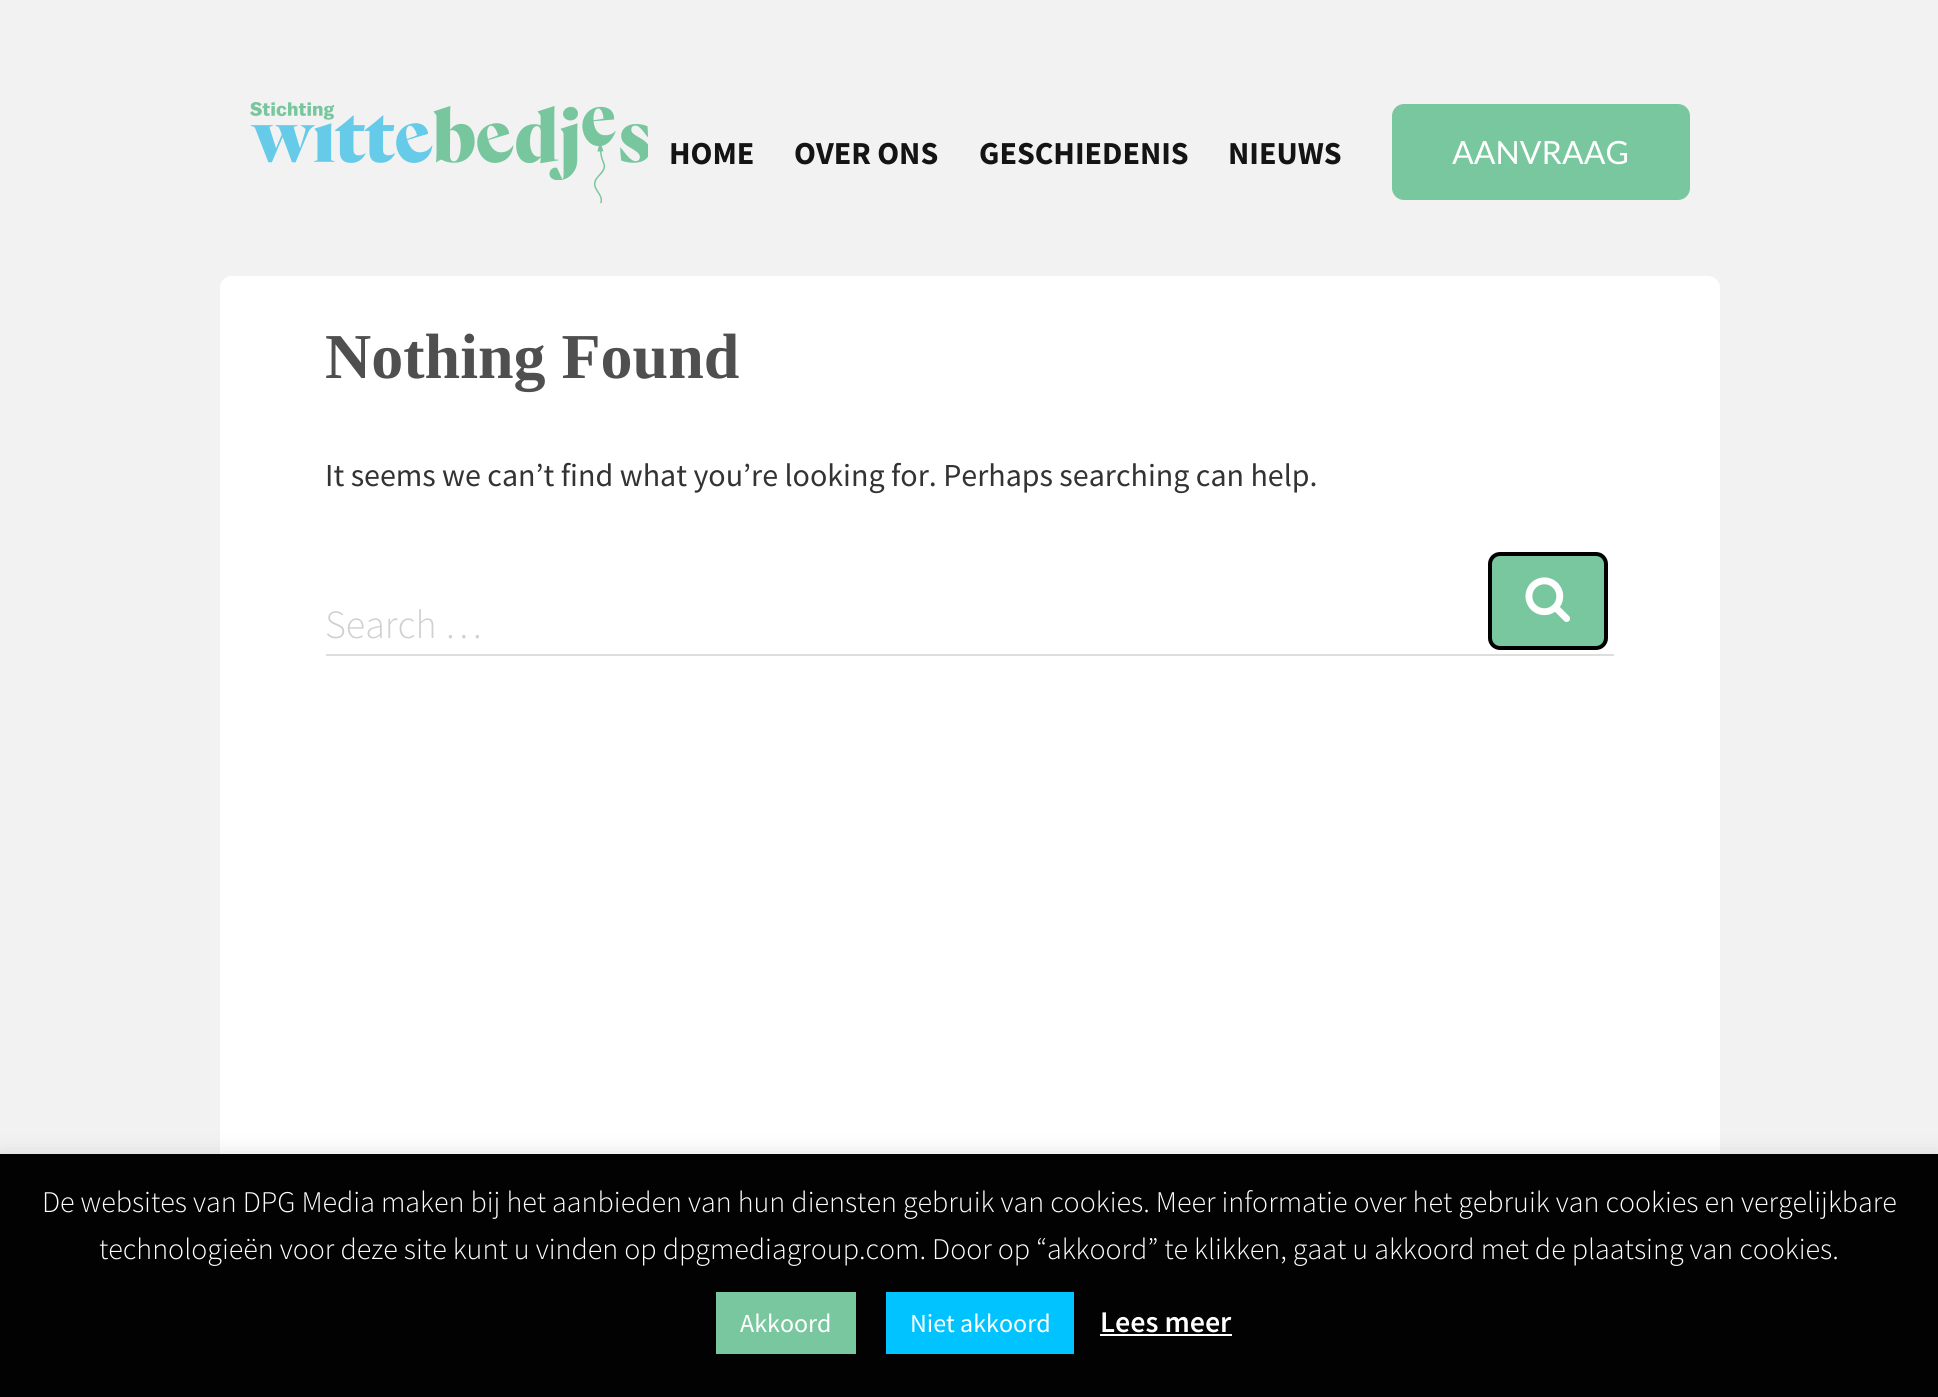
import math
import cairo


def use_color(cr, r, g, b):
  cr.set_source_rgb(r / 255, g / 255, b / 255)

def text(cr, x, y, s, family, size, color, bold=False, italic=False):
  cr.select_font_face(family, cairo.FONT_SLANT_ITALIC if italic else cairo.FONT_SLANT_NORMAL, cairo.FONT_WEIGHT_BOLD if bold else cairo.FONT_WEIGHT_NORMAL)
  cr.set_font_size(size)
  use_color(cr, *color)
  cr.move_to(x, y)
  cr.show_text(s)

def box(cr, x, y, w, h, *color):
  use_color(cr, *color)
  cr.rectangle(x, y, w, h)
  cr.fill()

def round_rect(cr, x, y, w, h, r):
  cr.new_sub_path()
  for i, (u, v) in enumerate([(x + w - r, y + h - r), (x + r, y + h - r), (x + r, y + r), (x + w - r, y + r)]):
    cr.arc(u, v, r, i * math.pi / 2, (i + 1) * math.pi / 2)
  cr.close_path()

def shadow(cr, x, y, w, h, r, blur, alpha):
  cr.push_group_with_content(cairo.CONTENT_ALPHA)
  cr.set_operator(cairo.OPERATOR_SOURCE)
  for i in range(15, -16, -2):
    e = blur * i / 6
    if min(w, h) + 2 * e > 0:
      cr.set_source_rgba(0, 0, 0, alpha * math.erfc((i - 1) / 8.5) / 2)
      round_rect(cr, x - e, y - e, w + 2 * e, h + 2 * e, max(0, min(r + e + blur * .6, min(w, h) / 2 + e)))
      cr.fill()
  cr.mask(cr.pop_group())

def picture(cr, path, x, y, w, h):
  cr.save()
  cr.set_source_surface(cairo.ImageSurface.create_from_png(path), x, y)
  cr.rectangle(x, y, w, h)
  cr.fill()
  cr.restore()

def draw(cr):
  use_color(cr, 242, 242, 242)
  cr.paint()
  picture(cr, "img_02.png", 582, 106, 34, 98)
  picture(cr, "img_01.png", 250, 102, 398, 78)
  use_color(cr, 120, 199, 158)
  round_rect(cr, 1392, 104, 298, 96, 12)
  cr.fill()
  use_color(cr, 255, 255, 255)
  round_rect(cr, 220, 276, 1500, 1030, 12)
  cr.fill()
  box(cr, 326, 654, 1288, 2, 221, 221, 221)
  use_color(cr, 120, 199, 158)
  round_rect(cr, 1490, 554, 116, 94, 10)
  cr.fill_preserve()
  use_color(cr, 0, 0, 0)
  cr.set_line_width(4)
  cr.stroke()
  picture(cr, "img_03.png", 1525, 577, 45, 45)
  use_color(cr, 172, 171, 171)
  shadow(cr, 0, 1152, 1938, 244, 0, 10, 0.3)
  box(cr, 0, 1154, 1938, 243, 2, 2, 2)
  box(cr, 716, 1292, 140, 62, 120, 199, 158)
  box(cr, 886, 1292, 188, 62, 0, 195, 255)
  box(cr, 1100, 1334, 132, 2, 255, 255, 255)
  text(cr, 669, 164, "HOME", "Source Sans Pro", 32, (20, 20, 20), bold=True)
  text(cr, 794, 164, "OVER ONS", "Source Sans Pro", 32, (20, 20, 20), bold=True)
  text(cr, 979, 164, "GESCHIEDENIS", "Source Sans Pro", 32, (20, 20, 20), bold=True)
  text(cr, 1228, 164, "NIEUWS", "Source Sans Pro", 32, (20, 20, 20), bold=True)
  text(cr, 1452, 164, "AANVRAAG", "Lato", 32, (255, 255, 255))
  text(cr, 325, 378, "Nothing Found", "Liberation Serif", 64, (79, 79, 79), bold=True)
  text(cr, 325, 486, "It seems we can’t find what you’re looking for. Perhaps searching can help.", "Source Sans Pro", 32, (51, 51, 51))
  text(cr, 325, 638, "Search …", "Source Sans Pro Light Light", 40, (208, 208, 208))
  text(cr, 42, 1212, "De websites van DPG Media maken bij het aanbieden van hun diensten gebruik van cookies. Meer informatie over het gebruik van cookies en vergelijkbare", "Source Sans Pro Light Light", 30, (255, 255, 255))
  text(cr, 99, 1259, "technologieën voor deze site kunt u vinden op dpgmediagroup.com. Door op “akkoord” te klikken, gaat u akkoord met de plaatsing van cookies.", "Source Sans Pro Light Light", 30, (255, 255, 255))
  text(cr, 740, 1332, "Akkoord", "Source Sans Pro", 26, (255, 255, 255))
  text(cr, 910, 1332, "Niet akkoord", "Source Sans Pro", 26, (255, 255, 255))
  text(cr, 1100, 1332, "Lees meer", "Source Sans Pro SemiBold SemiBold", 30, (255, 255, 255))


surface = cairo.ImageSurface(cairo.FORMAT_RGB24, 1938, 1397)
cr = cairo.Context(surface)
options = cairo.FontOptions()
options.set_hint_metrics(cairo.HINT_METRICS_OFF)
options.set_hint_style(cairo.HINT_STYLE_NONE)
cr.set_font_options(options)
cr.set_miter_limit(4)
draw(cr)
surface.write_to_png("out.png")
